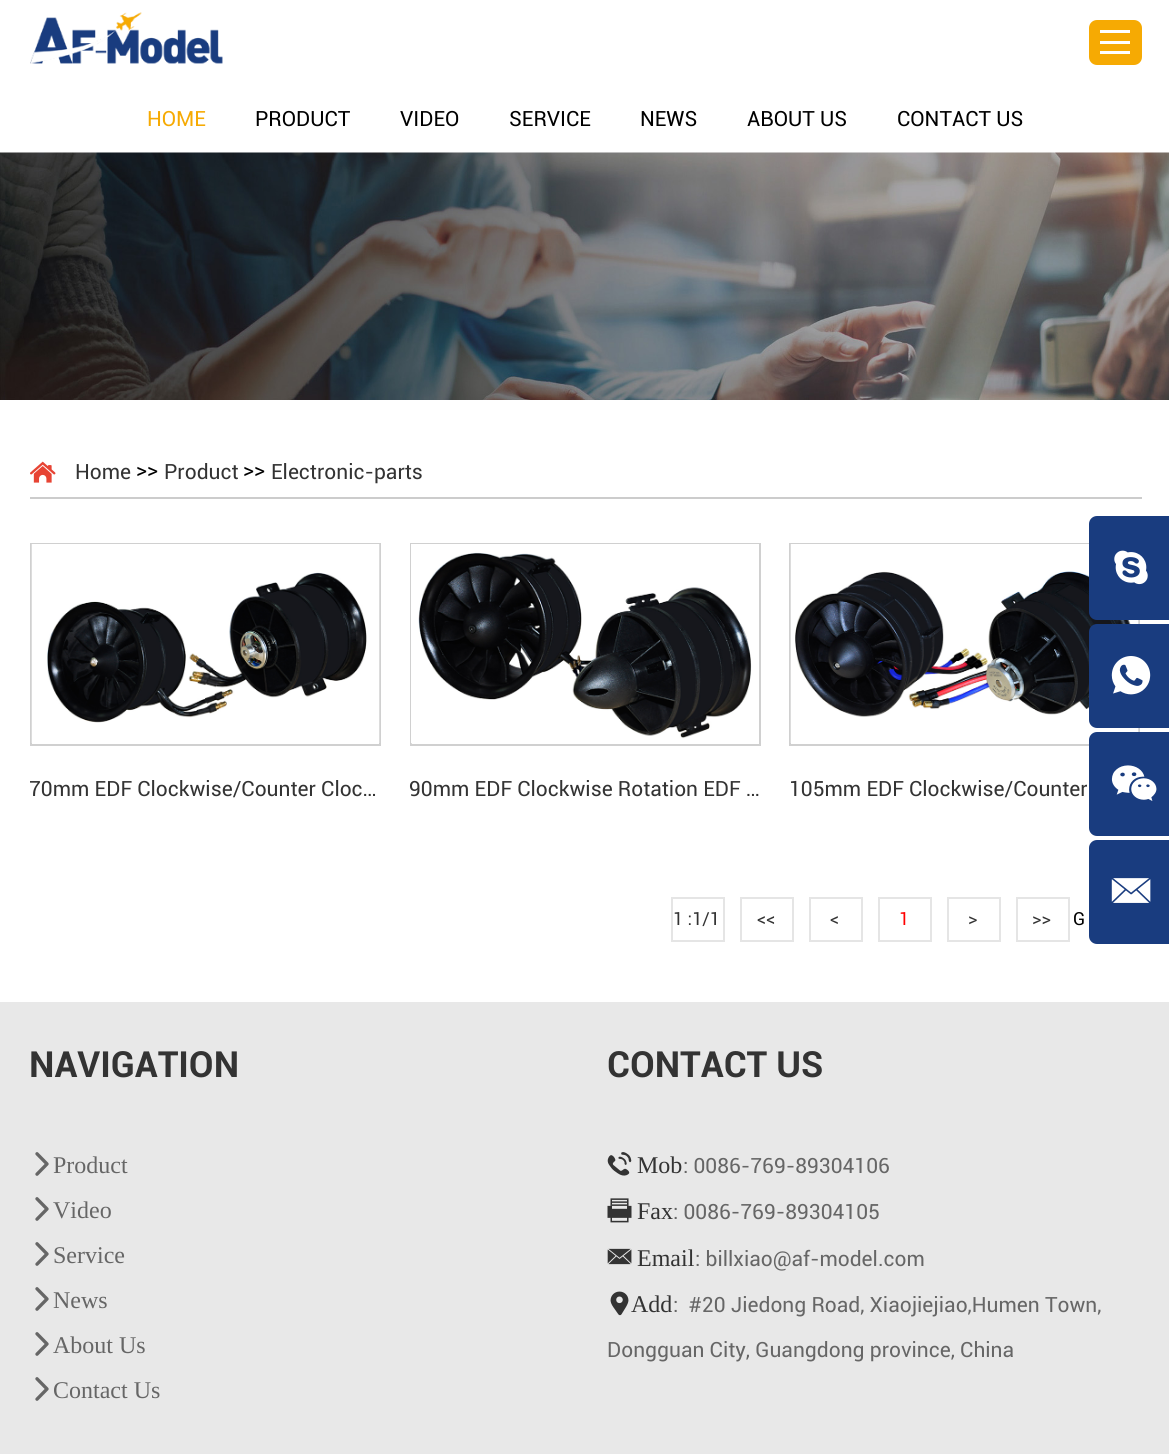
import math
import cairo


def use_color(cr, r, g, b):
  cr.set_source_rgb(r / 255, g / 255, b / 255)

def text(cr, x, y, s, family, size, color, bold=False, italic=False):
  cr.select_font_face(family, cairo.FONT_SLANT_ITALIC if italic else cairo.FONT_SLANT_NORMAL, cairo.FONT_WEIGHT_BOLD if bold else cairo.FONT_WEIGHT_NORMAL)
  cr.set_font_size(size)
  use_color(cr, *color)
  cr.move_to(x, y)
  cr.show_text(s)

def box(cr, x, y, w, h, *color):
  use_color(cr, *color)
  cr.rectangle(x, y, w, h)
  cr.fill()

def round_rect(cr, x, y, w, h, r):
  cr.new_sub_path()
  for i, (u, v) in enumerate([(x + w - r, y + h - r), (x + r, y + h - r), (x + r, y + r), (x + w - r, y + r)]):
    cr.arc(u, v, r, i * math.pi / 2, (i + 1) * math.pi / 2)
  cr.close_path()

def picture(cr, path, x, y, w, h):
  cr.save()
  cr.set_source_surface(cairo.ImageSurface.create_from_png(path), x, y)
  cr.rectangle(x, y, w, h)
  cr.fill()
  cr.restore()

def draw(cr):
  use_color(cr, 255, 255, 255)
  cr.paint()
  use_color(cr, 246, 170, 3)
  round_rect(cr, 1089, 20, 53, 45, 8)
  cr.fill()
  box(cr, 1100, 30, 30, 3, 255, 255, 255)
  box(cr, 1100, 41, 30, 3, 255, 255, 255)
  box(cr, 1100, 51, 30, 3, 255, 255, 255)
  picture(cr, "img_01.png", 30, 12, 193, 52)
  picture(cr, "img_02.png", 0, 152, 1169, 248)
  box(cr, 30, 497, 1112, 2, 204, 204, 204)
  picture(cr, "img_03.png", 30, 461, 26, 22)
  cr.rectangle(31, 544, 349, 201)
  use_color(cr, 208, 208, 208)
  cr.stroke()
  picture(cr, "img_04.png", 31, 544, 349, 199)
  cr.rectangle(411, 544, 349, 201)
  cr.stroke()
  picture(cr, "img_05.png", 411, 544, 348, 200)
  cr.rectangle(790, 544, 349, 201)
  cr.stroke()
  picture(cr, "img_06.png", 790, 544, 349, 199)
  cr.rectangle(672, 898, 52, 43)
  use_color(cr, 229, 229, 229)
  cr.stroke()
  cr.rectangle(741, 898, 52, 43)
  cr.stroke()
  cr.rectangle(810, 898, 52, 43)
  cr.stroke()
  cr.rectangle(879, 898, 52, 43)
  cr.stroke()
  cr.rectangle(948, 898, 52, 43)
  cr.stroke()
  cr.rectangle(1017, 898, 52, 43)
  cr.stroke()
  use_color(cr, 25, 60, 127)
  round_rect(cr, 1089, 516, 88, 104, 8)
  cr.fill()
  picture(cr, "img_07.png", 1114, 550, 34, 35)
  round_rect(cr, 1089, 624, 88, 104, 8)
  cr.fill()
  picture(cr, "img_08.png", 1111, 656, 40, 39)
  round_rect(cr, 1089, 732, 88, 104, 8)
  cr.fill()
  picture(cr, "img_09.png", 1111, 765, 46, 36)
  round_rect(cr, 1089, 840, 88, 104, 8)
  cr.fill()
  picture(cr, "img_10.png", 1111, 878, 40, 25)
  box(cr, 0, 1002, 1169, 452, 232, 232, 232)
  picture(cr, "img_11.png", 35, 1152, 14, 24)
  picture(cr, "img_11.png", 35, 1197, 14, 24)
  picture(cr, "img_11.png", 35, 1242, 14, 24)
  picture(cr, "img_11.png", 35, 1287, 14, 24)
  picture(cr, "img_11.png", 35, 1332, 14, 24)
  picture(cr, "img_11.png", 35, 1377, 14, 24)
  picture(cr, "img_12.png", 607, 1152, 25, 24)
  picture(cr, "img_13.png", 607, 1198, 25, 25)
  picture(cr, "img_14.png", 607, 1248, 25, 17)
  picture(cr, "img_15.png", 610, 1291, 19, 25)
  text(cr, 147, 126, "HOME", "Roboto", 21, (246, 170, 3))
  text(cr, 255, 126, "PRODUCT", "Roboto", 21, (0, 0, 0))
  text(cr, 400, 126, "VIDEO", "Roboto", 21, (0, 0, 0))
  text(cr, 509, 126, "SERVICE", "Roboto", 21, (0, 0, 0))
  text(cr, 640, 126, "NEWS", "Roboto", 21, (0, 0, 0))
  text(cr, 747, 126, "ABOUT US", "Roboto", 21, (0, 0, 0))
  text(cr, 897, 126, "CONTACT US", "Roboto", 21, (0, 0, 0))
  text(cr, 75, 479, "Home", "Roboto", 21, (51, 51, 51))
  text(cr, 136, 477, ">>", "Roboto", 21, (0, 0, 0))
  text(cr, 164, 479, "Product", "Roboto", 21, (51, 51, 51))
  text(cr, 243, 477, ">>", "Roboto", 21, (0, 0, 0))
  text(cr, 271, 479, "Electronic-parts", "Roboto", 21, (51, 51, 51))
  text(cr, 29, 796, "70mm EDF Clockwise/Counter Cloc…", "Roboto", 21, (51, 51, 51))
  text(cr, 409, 796, "90mm EDF Clockwise Rotation EDF …", "Roboto", 21, (51, 51, 51))
  text(cr, 789, 796, "105mm EDF Clockwise/Counter", "Roboto", 21, (51, 51, 51))
  text(cr, 673, 925, "1 :1/1", "Roboto", 18, (51, 51, 51))
  text(cr, 757, 925, "<<", "Roboto", 18, (51, 51, 51))
  text(cr, 830, 925, "<", "Roboto", 18, (51, 51, 51))
  text(cr, 899, 925, "1", "Roboto", 18, (255, 0, 0))
  text(cr, 968, 925, ">", "Roboto", 18, (51, 51, 51))
  text(cr, 1032, 925, ">>", "Roboto", 18, (51, 51, 51))
  text(cr, 1073, 925, "G", "Roboto", 18, (0, 0, 0))
  text(cr, 29, 1077, "NAVIGATION", "Roboto", 36, (51, 51, 51), bold=True)
  text(cr, 53, 1173, "Product", "Liberation Serif", 24, (102, 102, 102))
  text(cr, 53, 1218, "Video", "Liberation Serif", 24, (102, 102, 102))
  text(cr, 53, 1263, "Service", "Liberation Serif", 24, (102, 102, 102))
  text(cr, 53, 1308, "News", "Liberation Serif", 24, (102, 102, 102))
  text(cr, 53, 1353, "About Us", "Liberation Serif", 24, (102, 102, 102))
  text(cr, 53, 1398, "Contact Us", "Liberation Serif", 24, (102, 102, 102))
  text(cr, 607, 1077, "CONTACT US", "Roboto", 36, (51, 51, 51), bold=True)
  text(cr, 637, 1173, "Mob", "Liberation Serif", 24, (51, 51, 51))
  text(cr, 683, 1173, ": 0086-769-89304106", "Roboto", 21, (102, 102, 102))
  text(cr, 637, 1219, "Fax", "Liberation Serif", 24, (51, 51, 51))
  text(cr, 673, 1219, ": 0086-769-89304105", "Roboto", 21, (102, 102, 102))
  text(cr, 637, 1266, "Email", "Liberation Serif", 24, (51, 51, 51))
  text(cr, 695, 1266, ": billxiao@af-model.com", "Roboto", 21, (102, 102, 102))
  text(cr, 631, 1312, "Add", "Liberation Serif", 24, (51, 51, 51))
  text(cr, 673, 1312, ":  #20 Jiedong Road, Xiaojiejiao,Humen Town,", "Roboto", 21, (102, 102, 102))
  text(cr, 607, 1357, "Dongguan City, Guangdong province, China", "Roboto", 21, (102, 102, 102))


surface = cairo.ImageSurface(cairo.FORMAT_RGB24, 1169, 1454)
cr = cairo.Context(surface)
options = cairo.FontOptions()
options.set_hint_metrics(cairo.HINT_METRICS_OFF)
options.set_hint_style(cairo.HINT_STYLE_NONE)
cr.set_font_options(options)
cr.set_miter_limit(4)
draw(cr)
surface.write_to_png("out.png")
